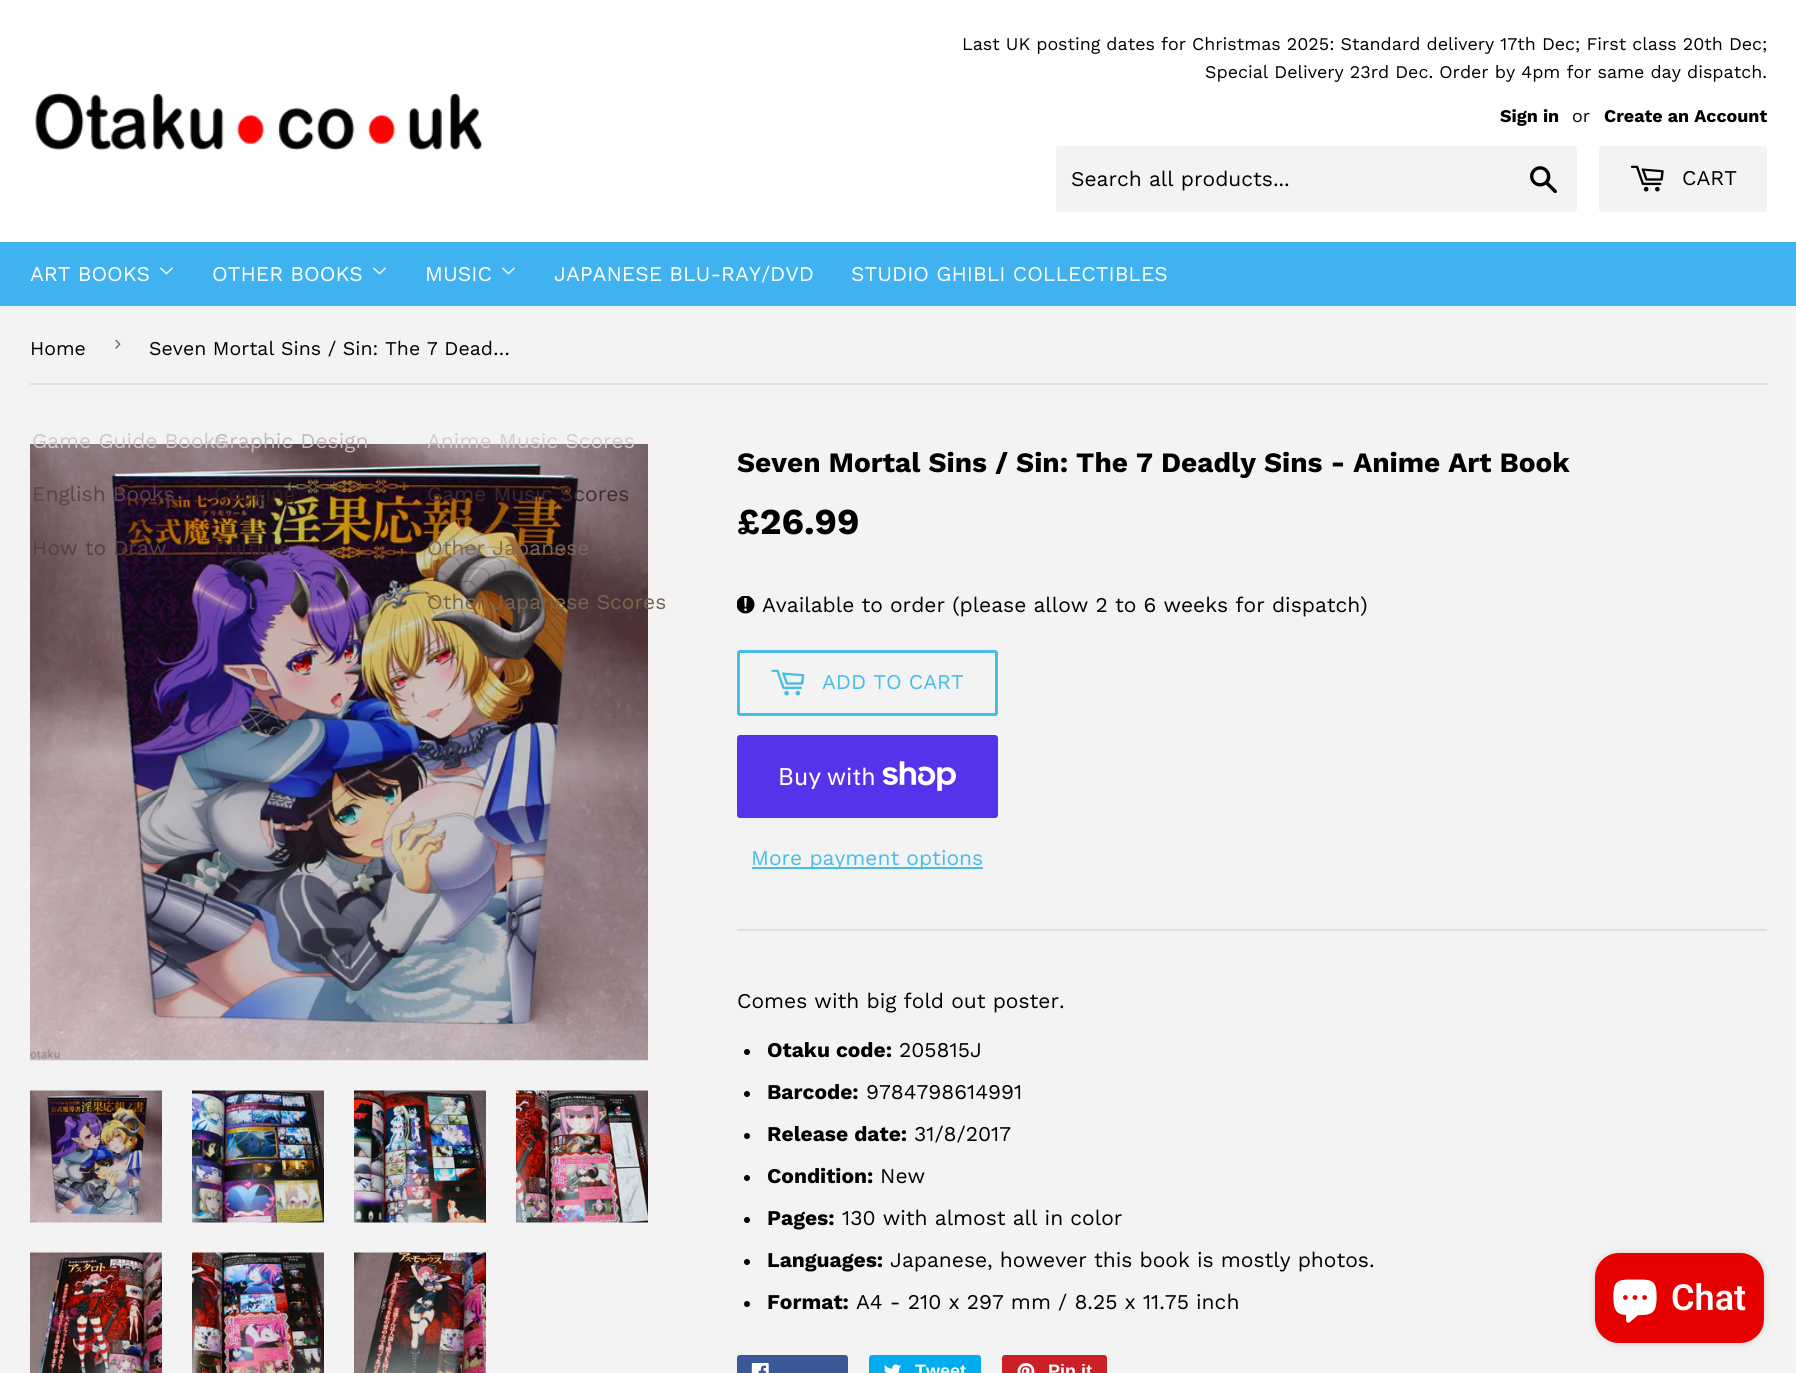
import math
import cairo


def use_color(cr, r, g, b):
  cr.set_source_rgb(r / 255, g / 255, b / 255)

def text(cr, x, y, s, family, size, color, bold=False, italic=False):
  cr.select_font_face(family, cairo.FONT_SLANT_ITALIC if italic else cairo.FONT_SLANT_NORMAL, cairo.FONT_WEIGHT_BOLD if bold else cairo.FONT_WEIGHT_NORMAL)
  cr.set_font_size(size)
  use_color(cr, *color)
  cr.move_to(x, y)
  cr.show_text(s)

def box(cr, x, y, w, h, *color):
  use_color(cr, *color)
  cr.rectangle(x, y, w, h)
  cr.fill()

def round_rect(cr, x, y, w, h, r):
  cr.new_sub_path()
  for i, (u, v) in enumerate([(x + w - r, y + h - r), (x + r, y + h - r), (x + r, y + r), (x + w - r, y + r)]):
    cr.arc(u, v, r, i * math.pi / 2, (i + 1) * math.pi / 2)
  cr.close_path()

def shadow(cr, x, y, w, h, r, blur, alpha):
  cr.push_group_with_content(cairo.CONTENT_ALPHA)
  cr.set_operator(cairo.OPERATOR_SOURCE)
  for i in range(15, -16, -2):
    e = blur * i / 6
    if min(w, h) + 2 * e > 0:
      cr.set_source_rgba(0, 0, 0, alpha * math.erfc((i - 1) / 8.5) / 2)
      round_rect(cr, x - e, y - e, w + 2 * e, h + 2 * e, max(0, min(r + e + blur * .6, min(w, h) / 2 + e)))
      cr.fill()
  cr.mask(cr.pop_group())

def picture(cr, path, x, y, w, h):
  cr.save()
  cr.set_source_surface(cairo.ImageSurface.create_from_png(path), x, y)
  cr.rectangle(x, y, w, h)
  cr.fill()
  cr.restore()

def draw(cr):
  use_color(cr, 243, 243, 243)
  cr.paint()
  box(cr, 0, 0, 1796, 242, 255, 255, 255)
  picture(cr, "img_01.png", 35, 92, 448, 59)
  use_color(cr, 243, 243, 243)
  round_rect(cr, 1056, 146, 521, 66, 3)
  cr.fill()
  picture(cr, "img_02.png", 1530, 166, 27, 28)
  round_rect(cr, 1599, 146, 168, 66, 3)
  cr.fill()
  picture(cr, "img_03.png", 1630, 165, 34, 27)
  box(cr, 0, 242, 1796, 64, 64, 178, 240)
  picture(cr, "img_04.png", 160, 267, 13, 8)
  picture(cr, "img_04.png", 373, 267, 13, 8)
  picture(cr, "img_04.png", 502, 267, 13, 8)
  box(cr, 30, 383, 1737, 2, 222, 222, 222)
  picture(cr, "img_05.png", 30, 444, 618, 617)
  picture(cr, "img_06.png", 30, 1090, 132, 133)
  picture(cr, "img_07.png", 192, 1090, 132, 133)
  picture(cr, "img_08.png", 354, 1090, 132, 133)
  picture(cr, "img_09.png", 516, 1090, 132, 133)
  picture(cr, "img_10.png", 30, 1252, 132, 121)
  picture(cr, "img_11.png", 192, 1252, 132, 121)
  picture(cr, "img_12.png", 354, 1252, 132, 121)
  picture(cr, "img_13.png", 737, 596, 18, 18)
  round_rect(cr, 738.5, 651.5, 258, 63, 1.5)
  use_color(cr, 70, 188, 232)
  cr.set_line_width(3)
  cr.stroke()
  picture(cr, "img_14.png", 771, 669, 34, 27)
  use_color(cr, 84, 51, 235)
  round_rect(cr, 737, 735, 261, 83, 3)
  cr.fill()
  picture(cr, "img_15.png", 882, 761, 74, 30)
  box(cr, 752, 867, 231, 2, 70, 188, 232)
  box(cr, 737, 929, 1030, 2, 222, 222, 222)
  use_color(cr, 0, 0, 0)
  cr.arc(747, 1052, 3, 0, 2 * math.pi)
  cr.fill()
  cr.arc(747, 1094, 3, 0, 2 * math.pi)
  cr.fill()
  cr.arc(747, 1136, 3, 0, 2 * math.pi)
  cr.fill()
  cr.arc(747, 1178, 3, 0, 2 * math.pi)
  cr.fill()
  cr.arc(747, 1220, 3, 0, 2 * math.pi)
  cr.fill()
  cr.arc(747, 1262, 3, 0, 2 * math.pi)
  cr.fill()
  cr.arc(747, 1304, 3, 0, 2 * math.pi)
  cr.fill()
  use_color(cr, 59, 89, 152)
  round_rect(cr, 737, 1355, 111, 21, 3)
  cr.fill()
  picture(cr, "img_16.png", 751, 1363, 18, 10)
  use_color(cr, 0, 172, 237)
  round_rect(cr, 869, 1355, 112, 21, 3)
  cr.fill()
  picture(cr, "img_17.png", 884, 1364, 17, 9)
  use_color(cr, 203, 32, 39)
  round_rect(cr, 1002, 1355, 105, 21, 3)
  cr.fill()
  picture(cr, "img_18.png", 1017, 1363, 18, 10)
  use_color(cr, 0, 0, 0)
  shadow(cr, 1595, 1253, 169, 90, 24, 4, 0.15)
  use_color(cr, 231, 0, 0)
  round_rect(cr, 1595, 1253, 169, 90, 24)
  cr.fill()
  picture(cr, "img_19.png", 1613, 1279, 44, 44)
  text(cr, 962, 50, "Last UK posting dates for Christmas 2025: Standard delivery 17th Dec; First class 20th Dec;", "Work Sans", 17.85, (0, 0, 0))
  text(cr, 1205, 78, "Special Delivery 23rd Dec. Order by 4pm for same day dispatch.", "Work Sans", 17.85, (0, 0, 0))
  text(cr, 1500, 122, "Sign in", "Work Sans", 17.85, (0, 0, 0), bold=True)
  text(cr, 1572, 122, "or", "Work Sans", 17.85, (0, 0, 0))
  text(cr, 1604, 122, "Create an Account", "Work Sans", 17.85, (0, 0, 0), bold=True)
  text(cr, 1071, 186, "Search all products...", "Work Sans", 21, (0, 0, 0))
  text(cr, 1682, 185, "CART", "Work Sans", 21, (0, 0, 0))
  text(cr, 30, 281, "ART BOOKS", "Work Sans", 21, (255, 255, 255))
  text(cr, 32, 448, "Game Guide Books", "Work Sans", 21, (206, 198, 200))
  text(cr, 32, 501, "English Books", "Work Sans", 21, (92, 67, 78))
  text(cr, 32, 555, "How to Draw", "Work Sans", 21, (86, 62, 71))
  text(cr, 212, 281, "OTHER BOOKS", "Work Sans", 21, (255, 255, 255))
  text(cr, 214, 448, "Graphic Design", "Work Sans", 21, (193, 184, 186))
  text(cr, 214, 501, "Cooking", "Work Sans", 21, (52, 31, 33))
  text(cr, 214, 555, "Culture", "Work Sans", 21, (55, 30, 47))
  text(cr, 248, 609, "l", "Work Sans", 21, (101, 67, 151))
  text(cr, 425, 281, "MUSIC", "Work Sans", 21, (255, 255, 255))
  text(cr, 427, 448, "Anime Music Scores", "Work Sans", 21, (211, 205, 207))
  text(cr, 427, 501, "Game Music Scores", "Work Sans", 21, (62, 42, 48))
  text(cr, 427, 555, "Other Japanese", "Work Sans", 21, (124, 104, 86))
  text(cr, 427, 609, "Other Japanese Scores", "Work Sans", 21, (122, 101, 80))
  text(cr, 554, 281, "JAPANESE BLU-RAY/DVD", "Work Sans", 21, (255, 255, 255))
  text(cr, 851, 281, "STUDIO GHIBLI COLLECTIBLES", "Work Sans", 21, (255, 255, 255))
  text(cr, 30, 355, "Home", "Work Sans", 19.5, (0, 0, 0))
  text(cr, 114, 350, "›", "Liberation Sans", 22, (118, 118, 118))
  text(cr, 149, 355, "Seven Mortal Sins / Sin: The 7 Dead…", "Work Sans", 19.5, (0, 0, 0))
  text(cr, 737, 472, "Seven Mortal Sins / Sin: The 7 Deadly Sins - Anime Art Book", "Work Sans", 28, (0, 0, 0), bold=True)
  text(cr, 737, 534, "£26.99", "Work Sans", 36.5, (0, 0, 0), bold=True)
  text(cr, 762, 612, "Available to order (please allow 2 to 6 weeks for dispatch)", "Work Sans", 21, (0, 0, 0))
  text(cr, 822, 689, "ADD TO CART", "Work Sans", 21, (70, 188, 232))
  text(cr, 778, 785, "Buy with", "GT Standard", 24, (255, 255, 255))
  text(cr, 751, 865, "More payment options", "Work Sans", 21, (70, 188, 232))
  text(cr, 737, 1008, "Comes with big fold out poster.", "Work Sans", 21, (0, 0, 0))
  text(cr, 767, 1057, "Otaku code:", "Work Sans", 21, (0, 0, 0), bold=True)
  text(cr, 899, 1057, "205815J", "Work Sans", 21, (0, 0, 0))
  text(cr, 767, 1099, "Barcode:", "Work Sans", 21, (0, 0, 0), bold=True)
  text(cr, 866, 1099, "9784798614991", "Work Sans", 21, (0, 0, 0))
  text(cr, 767, 1141, "Release date:", "Work Sans", 21, (0, 0, 0), bold=True)
  text(cr, 914, 1141, "31/8/2017", "Work Sans", 21, (0, 0, 0))
  text(cr, 767, 1183, "Condition:", "Work Sans", 21, (0, 0, 0), bold=True)
  text(cr, 880, 1183, "New", "Work Sans", 21, (0, 0, 0))
  text(cr, 767, 1225, "Pages:", "Work Sans", 21, (0, 0, 0), bold=True)
  text(cr, 842, 1225, "130 with almost all in color", "Work Sans", 21, (0, 0, 0))
  text(cr, 767, 1267, "Languages:", "Work Sans", 21, (0, 0, 0), bold=True)
  text(cr, 890, 1267, "Japanese, however this book is mostly photos.", "Work Sans", 21, (0, 0, 0))
  text(cr, 767, 1309, "Format:", "Work Sans", 21, (0, 0, 0), bold=True)
  text(cr, 856, 1309, "A4 - 210 x 297 mm / 8.25 x 11.75 inch", "Work Sans", 21, (0, 0, 0))
  text(cr, 915, 1377, "Tweet", "Liberation Sans", 18, (255, 255, 255), bold=True)
  text(cr, 1048, 1377, "Pin it", "Liberation Sans", 18, (255, 255, 255), bold=True)
  text(cr, 1671, 1310, "Chat", "Roboto SemiBold", 36, (255, 255, 255))


surface = cairo.ImageSurface(cairo.FORMAT_RGB24, 1796, 1373)
cr = cairo.Context(surface)
options = cairo.FontOptions()
options.set_hint_metrics(cairo.HINT_METRICS_OFF)
options.set_hint_style(cairo.HINT_STYLE_NONE)
cr.set_font_options(options)
cr.set_miter_limit(4)
draw(cr)
surface.write_to_png("out.png")
